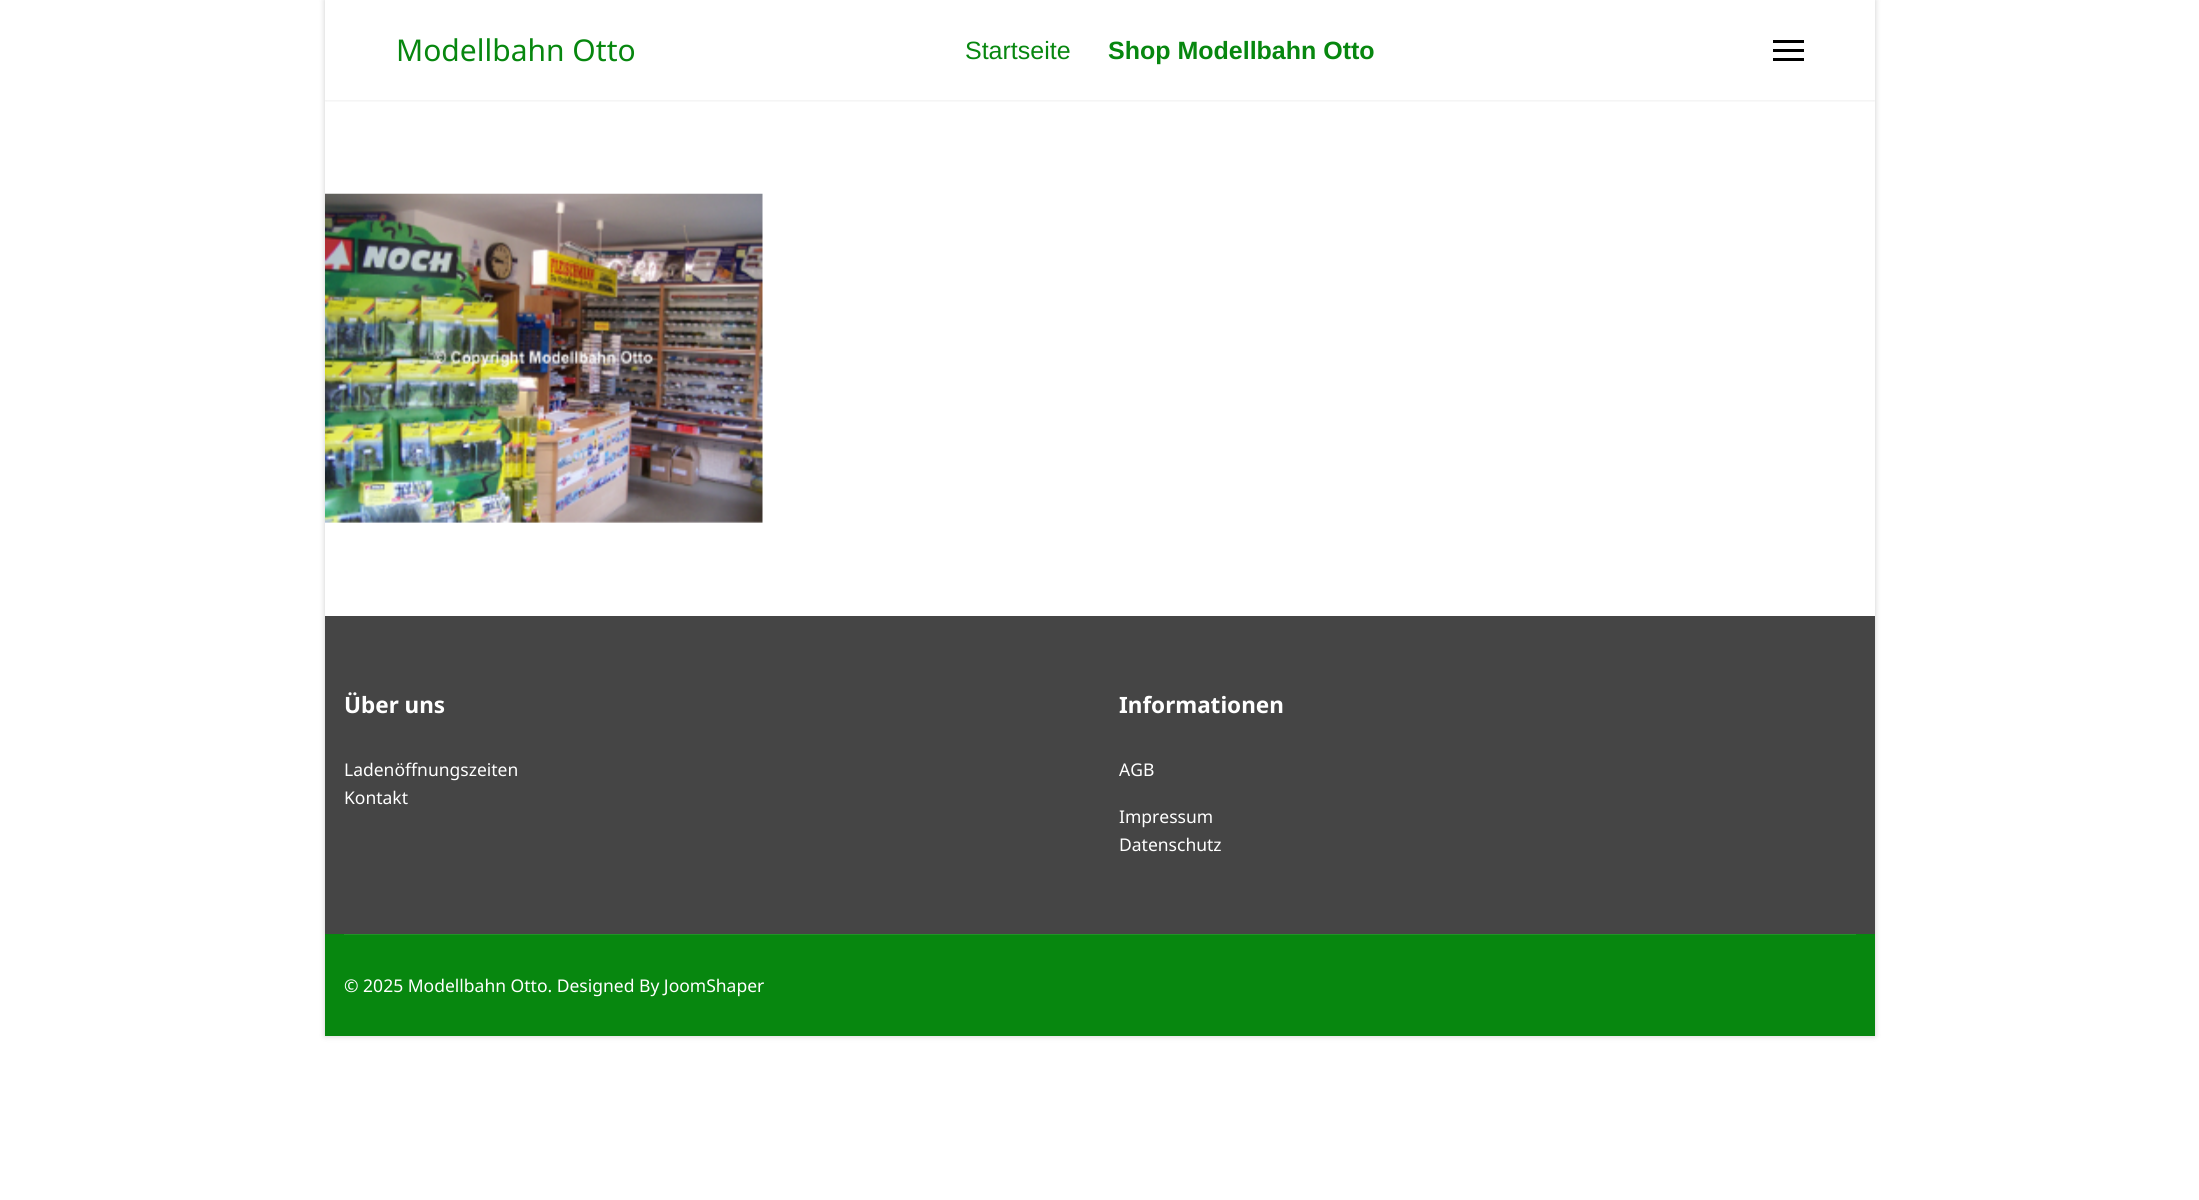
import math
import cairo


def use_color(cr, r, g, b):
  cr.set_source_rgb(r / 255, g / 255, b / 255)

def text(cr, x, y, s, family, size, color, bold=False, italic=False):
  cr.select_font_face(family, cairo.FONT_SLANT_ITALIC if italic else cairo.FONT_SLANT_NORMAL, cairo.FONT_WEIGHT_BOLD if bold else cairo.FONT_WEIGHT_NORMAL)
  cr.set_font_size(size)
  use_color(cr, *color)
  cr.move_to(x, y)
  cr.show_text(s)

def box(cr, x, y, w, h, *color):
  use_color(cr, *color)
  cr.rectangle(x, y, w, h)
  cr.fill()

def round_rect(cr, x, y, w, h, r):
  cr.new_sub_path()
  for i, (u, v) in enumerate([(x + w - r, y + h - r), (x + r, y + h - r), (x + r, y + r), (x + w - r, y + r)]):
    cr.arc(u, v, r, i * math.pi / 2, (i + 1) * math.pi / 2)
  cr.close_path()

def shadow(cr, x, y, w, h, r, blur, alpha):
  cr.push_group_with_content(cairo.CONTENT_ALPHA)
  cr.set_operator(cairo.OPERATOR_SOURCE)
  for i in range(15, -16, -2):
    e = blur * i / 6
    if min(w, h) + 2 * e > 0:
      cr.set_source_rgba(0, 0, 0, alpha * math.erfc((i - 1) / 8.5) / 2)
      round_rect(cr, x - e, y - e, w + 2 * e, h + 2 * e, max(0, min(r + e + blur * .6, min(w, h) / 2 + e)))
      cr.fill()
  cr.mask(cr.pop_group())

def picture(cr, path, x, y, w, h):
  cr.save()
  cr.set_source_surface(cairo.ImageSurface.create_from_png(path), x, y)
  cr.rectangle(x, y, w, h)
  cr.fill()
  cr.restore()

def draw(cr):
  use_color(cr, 255, 255, 255)
  cr.paint()
  cr.save()
  cr.set_fill_rule(cairo.FILL_RULE_EVEN_ODD)
  cr.new_path()
  cr.move_to(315, 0)
  cr.line_to(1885, 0)
  cr.line_to(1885, 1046)
  cr.line_to(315, 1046)
  cr.close_path()
  cr.move_to(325, 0)
  cr.line_to(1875, 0)
  cr.line_to(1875, 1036)
  cr.line_to(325, 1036)
  cr.close_path()
  cr.clip()
  use_color(cr, 0, 0, 0)
  shadow(cr, 325, 0, 1550, 1036, 0, 3, 0.2)
  cr.restore()
  cr.save()
  cr.rectangle(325, 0, 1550, 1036)
  cr.clip()
  cr.rectangle(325, 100, 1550, 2)
  cr.clip()
  use_color(cr, 0, 0, 0)
  shadow(cr, 325, 0, 1550, 100, 0, 2.5, 0.1)
  cr.restore()
  box(cr, 1773, 40, 31, 3, 0, 0, 0)
  box(cr, 1773, 49, 31, 3, 0, 0, 0)
  box(cr, 1773, 58, 31, 3, 0, 0, 0)
  picture(cr, "img_01.png", 325, 193, 438, 330)
  box(cr, 325, 616, 1550, 318, 69, 69, 69)
  box(cr, 325, 934, 1550, 102, 7, 135, 15)
  box(cr, 344, 934, 1512, 1, 32, 147, 39)
  text(cr, 396, 61, "Modellbahn Otto", "Noto Sans", 30, (7, 135, 15))
  text(cr, 965, 59, "Startseite", "Liberation Sans", 25, (7, 135, 15))
  text(cr, 1108, 59, "Shop Modellbahn Otto", "Liberation Sans", 25, (7, 135, 15), bold=True)
  text(cr, 344, 713, "Über uns", "Noto Sans", 22.5, (255, 255, 255), bold=True)
  text(cr, 344, 776, "Ladenöffnungszeiten", "Noto Sans", 17.5, (255, 255, 255))
  text(cr, 344, 804, "Kontakt", "Noto Sans", 17.5, (255, 255, 255))
  text(cr, 1119, 713, "Informationen", "Noto Sans", 22.5, (255, 255, 255), bold=True)
  text(cr, 1119, 776, "AGB", "Noto Sans", 17.5, (255, 255, 255))
  text(cr, 1119, 823, "Impressum", "Noto Sans", 17.5, (255, 255, 255))
  text(cr, 1119, 851, "Datenschutz", "Noto Sans", 17.5, (255, 255, 255))
  text(cr, 344, 992, "© 2025 Modellbahn Otto. Designed By JoomShaper", "Noto Sans", 17.5, (255, 255, 255))


surface = cairo.ImageSurface(cairo.FORMAT_RGB24, 2199, 1200)
cr = cairo.Context(surface)
options = cairo.FontOptions()
options.set_hint_metrics(cairo.HINT_METRICS_OFF)
options.set_hint_style(cairo.HINT_STYLE_NONE)
cr.set_font_options(options)
cr.set_miter_limit(4)
draw(cr)
surface.write_to_png("out.png")
